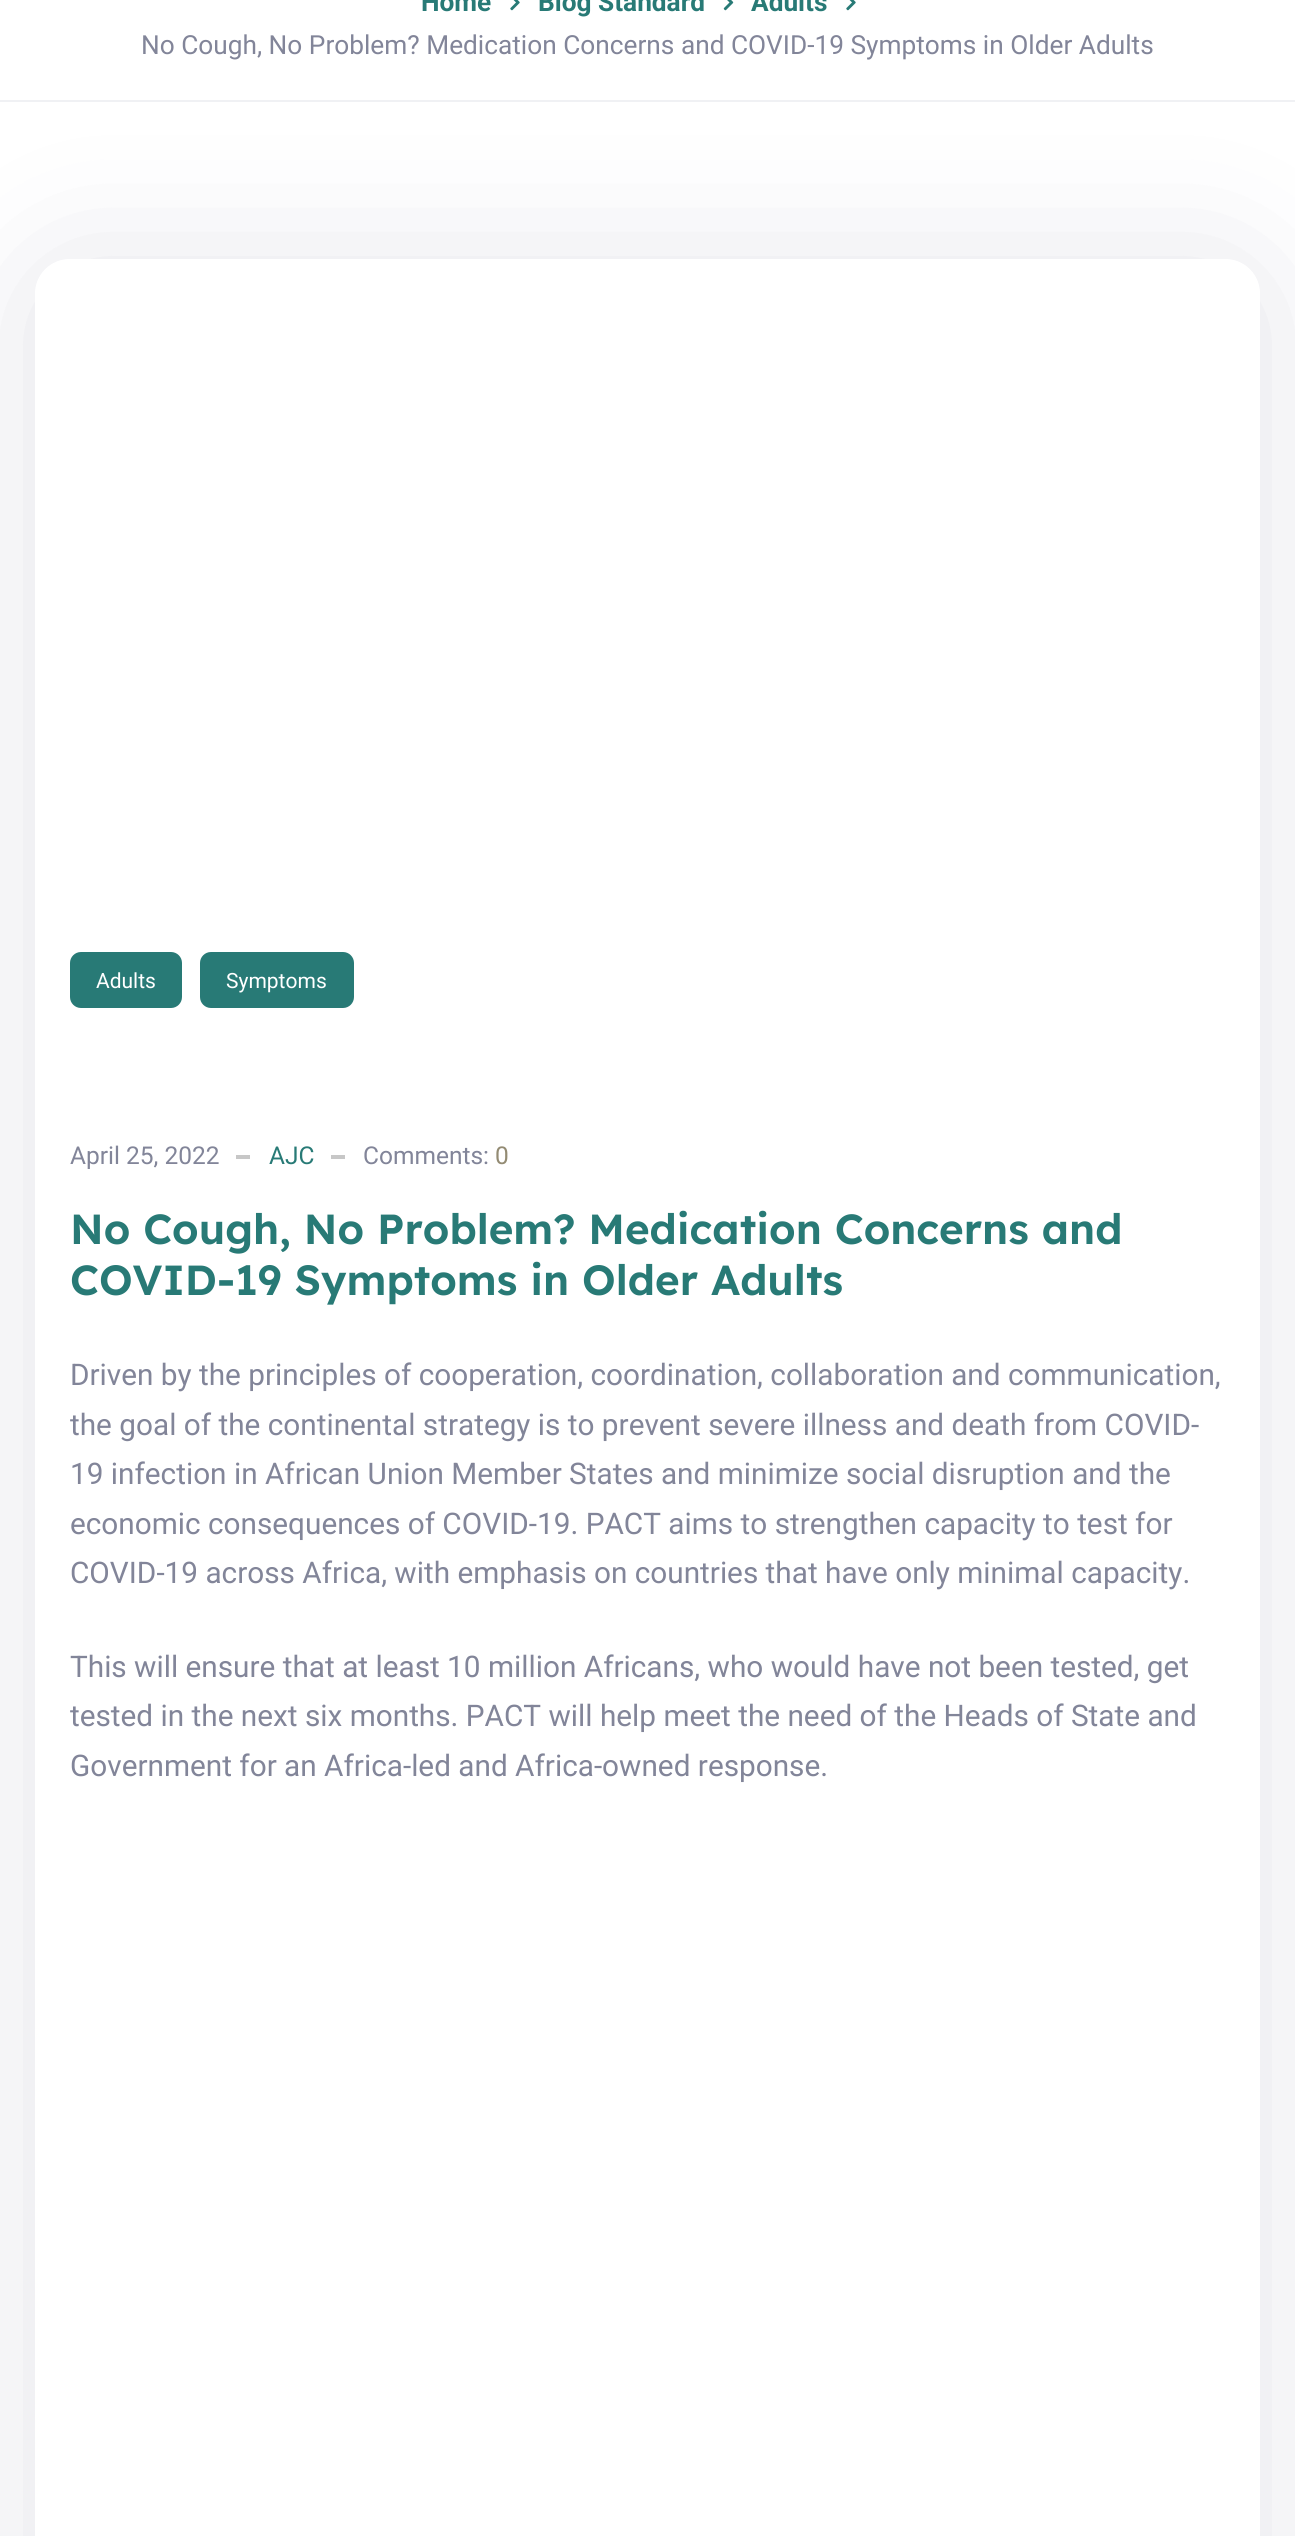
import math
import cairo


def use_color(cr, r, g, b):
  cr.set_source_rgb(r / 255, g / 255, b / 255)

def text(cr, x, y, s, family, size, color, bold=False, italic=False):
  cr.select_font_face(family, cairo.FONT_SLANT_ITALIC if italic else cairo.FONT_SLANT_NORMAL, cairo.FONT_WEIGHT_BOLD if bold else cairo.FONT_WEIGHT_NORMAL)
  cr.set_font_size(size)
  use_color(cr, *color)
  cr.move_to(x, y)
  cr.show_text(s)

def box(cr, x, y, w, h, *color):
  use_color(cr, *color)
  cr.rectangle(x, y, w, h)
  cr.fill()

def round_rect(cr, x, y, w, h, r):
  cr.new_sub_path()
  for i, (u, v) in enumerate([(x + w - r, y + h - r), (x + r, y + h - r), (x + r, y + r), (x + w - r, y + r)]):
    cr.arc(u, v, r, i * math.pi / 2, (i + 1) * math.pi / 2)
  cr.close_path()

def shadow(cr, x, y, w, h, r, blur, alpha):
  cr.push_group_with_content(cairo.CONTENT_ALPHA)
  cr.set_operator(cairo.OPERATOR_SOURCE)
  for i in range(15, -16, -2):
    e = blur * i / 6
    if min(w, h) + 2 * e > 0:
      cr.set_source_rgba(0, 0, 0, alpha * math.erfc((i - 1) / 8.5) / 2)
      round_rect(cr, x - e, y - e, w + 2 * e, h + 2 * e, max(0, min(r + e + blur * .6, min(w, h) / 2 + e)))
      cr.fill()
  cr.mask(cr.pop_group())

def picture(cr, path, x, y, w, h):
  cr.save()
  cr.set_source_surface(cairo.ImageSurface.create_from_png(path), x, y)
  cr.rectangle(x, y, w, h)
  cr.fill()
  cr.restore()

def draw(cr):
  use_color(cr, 255, 255, 255)
  cr.paint()
  box(cr, 0, 100, 1295, 2, 240, 241, 244)
  picture(cr, "img_01.png", 510, 0, 10, 11)
  picture(cr, "img_02.png", 723, 0, 11, 11)
  picture(cr, "img_01.png", 846, 0, 10, 11)
  cr.save()
  cr.set_fill_rule(cairo.FILL_RULE_EVEN_ODD)
  cr.new_path()
  cr.move_to(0, 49)
  cr.line_to(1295, 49)
  cr.line_to(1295, 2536)
  cr.line_to(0, 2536)
  cr.close_path()
  cr.move_to(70, 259)
  cr.line_to(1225, 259)
  cr.curve_to(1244.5, 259, 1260, 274.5, 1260, 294)
  cr.line_to(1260, 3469)
  cr.curve_to(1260, 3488.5, 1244.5, 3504, 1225, 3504)
  cr.line_to(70, 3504)
  cr.curve_to(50.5, 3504, 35, 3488.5, 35, 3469)
  cr.line_to(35, 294)
  cr.curve_to(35, 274.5, 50.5, 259, 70, 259)
  cr.close_path()
  cr.clip()
  use_color(cr, 13, 14, 67)
  shadow(cr, 35, 268, 1225, 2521, 35, 72.5, 0.12)
  cr.restore()
  use_color(cr, 40, 122, 118)
  round_rect(cr, 70, 952, 112, 56, 11)
  cr.fill()
  round_rect(cr, 200, 952, 154, 56, 11)
  cr.fill()
  box(cr, 236, 1155, 14, 4, 199, 199, 199)
  box(cr, 331, 1155, 14, 4, 199, 199, 199)
  text(cr, 421, 11, "Home", "Roboto", 26.25, (40, 122, 118), bold=True)
  text(cr, 538, 11, "Blog Standard", "Roboto", 26.25, (40, 122, 118), bold=True)
  text(cr, 751, 11, "Adults", "Roboto", 26.25, (40, 122, 118), bold=True)
  text(cr, 141, 54, "No Cough, No Problem? Medication Concerns and COVID-19 Symptoms in Older Adults", "Roboto", 26.25, (130, 133, 153))
  text(cr, 96, 988, "Adults", "Roboto", 21, (255, 255, 255))
  text(cr, 226, 988, "Symptoms", "Roboto", 21, (255, 255, 255))
  text(cr, 70, 1164, "April 25, 2022", "Roboto", 24.5, (130, 133, 153))
  text(cr, 269, 1164, "AJC", "Roboto", 24.5, (40, 122, 118))
  text(cr, 363, 1164, "Comments:", "Roboto", 24.5, (130, 133, 153))
  text(cr, 495, 1164, "0", "Roboto", 24.5, (147, 139, 115))
  text(cr, 70, 1244, "No Cough, No Problem? Medication Concerns and", "Lexend SemiBold", 42, (40, 122, 118))
  text(cr, 70, 1295, "COVID-19 Symptoms in Older Adults", "Lexend SemiBold", 42, (40, 122, 118))
  text(cr, 70, 1385, "Driven by the principles of cooperation, coordination, collaboration and communication,", "Roboto", 29.75, (130, 133, 153))
  text(cr, 70, 1435, "the goal of the continental strategy is to prevent severe illness and death from COVID-", "Roboto", 29.75, (130, 133, 153))
  text(cr, 70, 1484, "19 infection in African Union Member States and minimize social disruption and the", "Roboto", 29.75, (130, 133, 153))
  text(cr, 70, 1534, "economic consequences of COVID-19. PACT aims to strengthen capacity to test for", "Roboto", 29.75, (130, 133, 153))
  text(cr, 70, 1583, "COVID-19 across Africa, with emphasis on countries that have only minimal capacity.", "Roboto", 29.75, (130, 133, 153))
  text(cr, 70, 1677, "This will ensure that at least 10 million Africans, who would have not been tested, get", "Roboto", 29.75, (130, 133, 153))
  text(cr, 70, 1726, "tested in the next six months. PACT will help meet the need of the Heads of State and", "Roboto", 29.75, (130, 133, 153))
  text(cr, 70, 1776, "Government for an Africa-led and Africa-owned response.", "Roboto", 29.75, (130, 133, 153))


surface = cairo.ImageSurface(cairo.FORMAT_RGB24, 1295, 2536)
cr = cairo.Context(surface)
options = cairo.FontOptions()
options.set_hint_metrics(cairo.HINT_METRICS_OFF)
options.set_hint_style(cairo.HINT_STYLE_NONE)
cr.set_font_options(options)
cr.set_miter_limit(4)
draw(cr)
surface.write_to_png("out.png")
